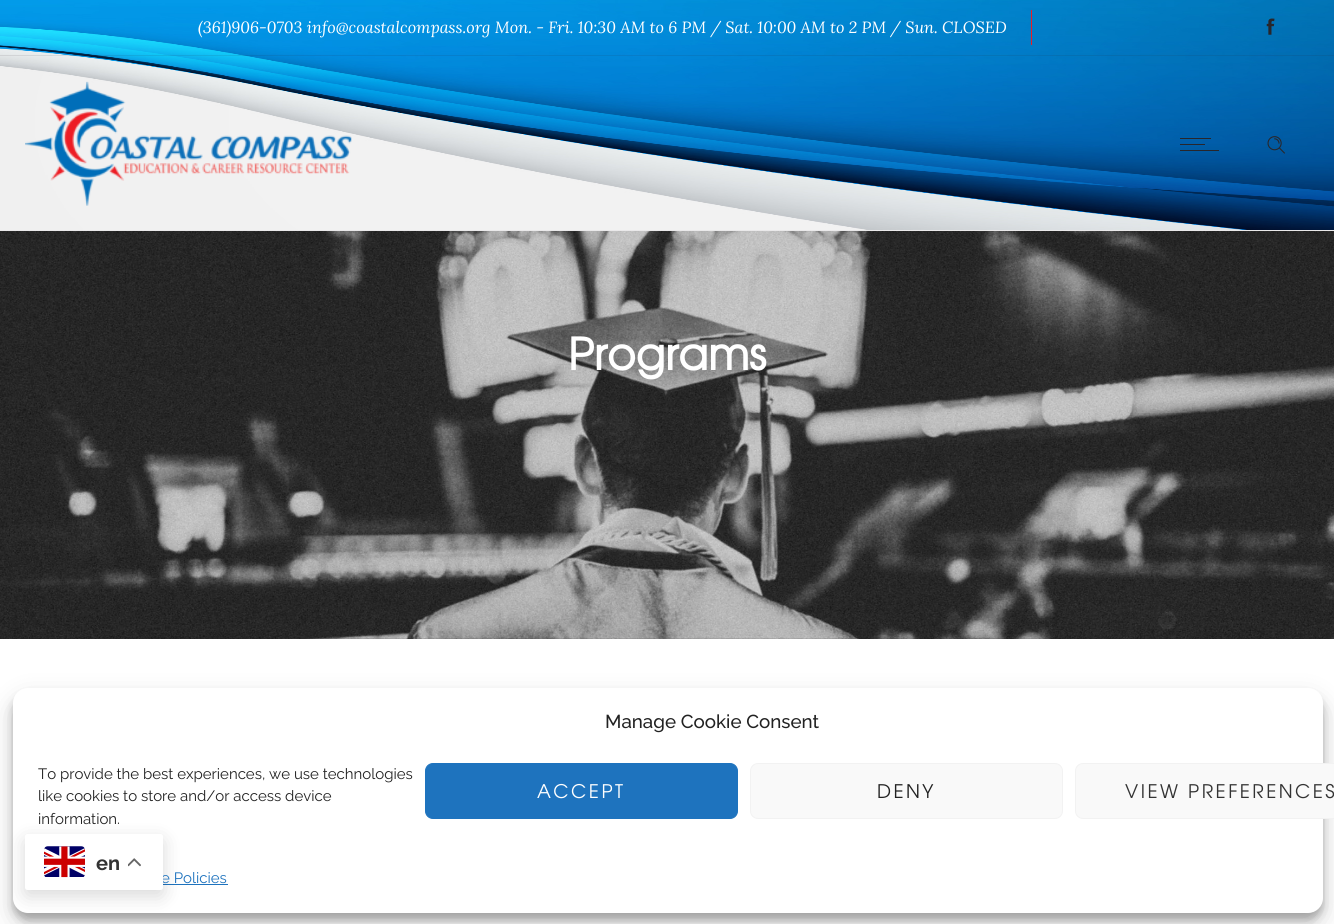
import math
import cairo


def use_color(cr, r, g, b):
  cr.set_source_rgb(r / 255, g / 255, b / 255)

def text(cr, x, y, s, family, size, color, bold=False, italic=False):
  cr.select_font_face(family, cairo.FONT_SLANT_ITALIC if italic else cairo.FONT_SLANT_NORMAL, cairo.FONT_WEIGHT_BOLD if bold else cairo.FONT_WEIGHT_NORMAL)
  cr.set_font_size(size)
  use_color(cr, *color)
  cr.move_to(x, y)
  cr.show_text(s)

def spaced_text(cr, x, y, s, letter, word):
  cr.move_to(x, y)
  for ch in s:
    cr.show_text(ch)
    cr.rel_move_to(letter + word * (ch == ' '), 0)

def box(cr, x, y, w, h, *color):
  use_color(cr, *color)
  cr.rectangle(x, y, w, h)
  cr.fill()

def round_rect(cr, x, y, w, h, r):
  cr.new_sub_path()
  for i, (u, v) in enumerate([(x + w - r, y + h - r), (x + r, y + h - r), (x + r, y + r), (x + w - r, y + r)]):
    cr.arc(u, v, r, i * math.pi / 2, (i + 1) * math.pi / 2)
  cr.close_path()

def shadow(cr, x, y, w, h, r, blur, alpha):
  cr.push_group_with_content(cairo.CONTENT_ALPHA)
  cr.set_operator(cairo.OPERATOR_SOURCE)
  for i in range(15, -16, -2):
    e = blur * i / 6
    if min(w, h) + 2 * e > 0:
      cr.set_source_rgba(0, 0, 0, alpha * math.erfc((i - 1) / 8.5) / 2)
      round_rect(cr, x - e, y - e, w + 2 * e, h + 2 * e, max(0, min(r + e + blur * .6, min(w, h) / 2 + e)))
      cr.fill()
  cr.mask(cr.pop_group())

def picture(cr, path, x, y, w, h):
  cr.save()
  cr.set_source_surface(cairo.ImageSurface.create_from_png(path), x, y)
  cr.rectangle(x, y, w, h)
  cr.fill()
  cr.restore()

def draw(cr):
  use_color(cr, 255, 255, 255)
  cr.paint()
  box(cr, 0, 230, 1334, 1, 234, 233, 234)
  picture(cr, "img_01.png", 0, 0, 1334, 230)
  cr.set_source_rgba(0.157, 0.149, 0.169, 0.1)
  cr.rectangle(0, 55, 1334, 1)
  cr.fill()
  box(cr, 1031, 10, 1, 35, 237, 28, 36)
  picture(cr, "img_02.png", 1266, 18, 9, 17)
  picture(cr, "img_03.png", 25, 81, 327, 125)
  box(cr, 1180, 138, 31, 1, 40, 38, 43)
  box(cr, 1180, 144, 25, 1, 40, 38, 43)
  box(cr, 1180, 150, 39, 1, 40, 38, 43)
  picture(cr, "img_04.png", 1267, 136, 18, 18)
  picture(cr, "img_05.png", 0, 231, 1334, 408)
  cr.set_source_rgba(0.106, 0.106, 0.106, 0.1)
  cr.rectangle(307, 638, 1027, 1)
  cr.fill()
  use_color(cr, 0, 0, 0)
  shadow(cr, 13, 695, 1310, 225, 15, 4, 0.23)
  shadow(cr, 13, 700, 1310, 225, 15, 12.5, 0.19)
  use_color(cr, 255, 255, 255)
  round_rect(cr, 13, 688, 1310, 225, 15)
  cr.fill()
  use_color(cr, 30, 115, 190)
  round_rect(cr, 425.5, 763.5, 312, 55, 7.5)
  cr.fill_preserve()
  cr.set_line_width(1)
  cr.stroke()
  use_color(cr, 249, 249, 249)
  round_rect(cr, 750.5, 763.5, 312, 55, 7.5)
  cr.fill_preserve()
  use_color(cr, 242, 242, 242)
  cr.stroke()
  use_color(cr, 249, 249, 249)
  round_rect(cr, 1075.5, 763.5, 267, 55, 7.5)
  cr.fill_preserve()
  use_color(cr, 242, 242, 242)
  cr.stroke()
  box(cr, 163, 884, 65, 1, 30, 115, 190)
  use_color(cr, 0, 0, 0)
  shadow(cr, 25, 840, 138, 56, 2.5, 9.5, 0.15)
  text(cr, 198, 33, "(361)906-0703 info@coastalcompass.org Mon. - Fri. 10:30 AM to 6 PM / Sat. 10:00 AM to 2 PM / Sun. CLOSED", "Lora", 16.25, (255, 255, 255), italic=True)
  text(cr, 568, 370, "Programs", "TeX Gyre Adventor", 43.75, (255, 255, 255), bold=True)
  text(cr, 605, 728, "Manage Cookie Consent", "Raleway Medium", 18.75, (34, 34, 34))
  text(cr, 38, 779, "To provide the best experiences, we use technologies", "Raleway Thin", 15, (34, 34, 34))
  text(cr, 38, 801, "like cookies to store and/or access device", "Raleway Thin", 15, (34, 34, 34))
  text(cr, 38, 824, "information.", "Raleway Thin", 15, (34, 34, 34))
  cr.select_font_face("TeX Gyre Adventor")
  cr.set_font_size(18.75)
  use_color(cr, 255, 255, 255)
  spaced_text(cr, 537, 798, "ACCEPT", 2.5, 0)
  use_color(cr, 34, 34, 34)
  spaced_text(cr, 877, 798, "DENY", 2.5, 0)
  use_color(cr, 51, 51, 51)
  spaced_text(cr, 1125, 798, "VIEW PREFERENCES", 2.5, 0)
  text(cr, 161, 883, "e Policies", "Raleway Thin", 15, (30, 115, 190))
  use_color(cr, 255, 255, 255)
  round_rect(cr, 25, 834, 138, 56, 2.5)
  cr.fill()
  picture(cr, "img_06.png", 44, 846, 41, 32)
  text(cr, 96, 870, "en", "Raleway", 20, (51, 51, 51), bold=True)
  picture(cr, "img_07.png", 128, 858, 13, 9)


surface = cairo.ImageSurface(cairo.FORMAT_RGB24, 1334, 924)
cr = cairo.Context(surface)
options = cairo.FontOptions()
options.set_hint_metrics(cairo.HINT_METRICS_OFF)
options.set_hint_style(cairo.HINT_STYLE_NONE)
cr.set_font_options(options)
cr.set_miter_limit(4)
draw(cr)
surface.write_to_png("out.png")
